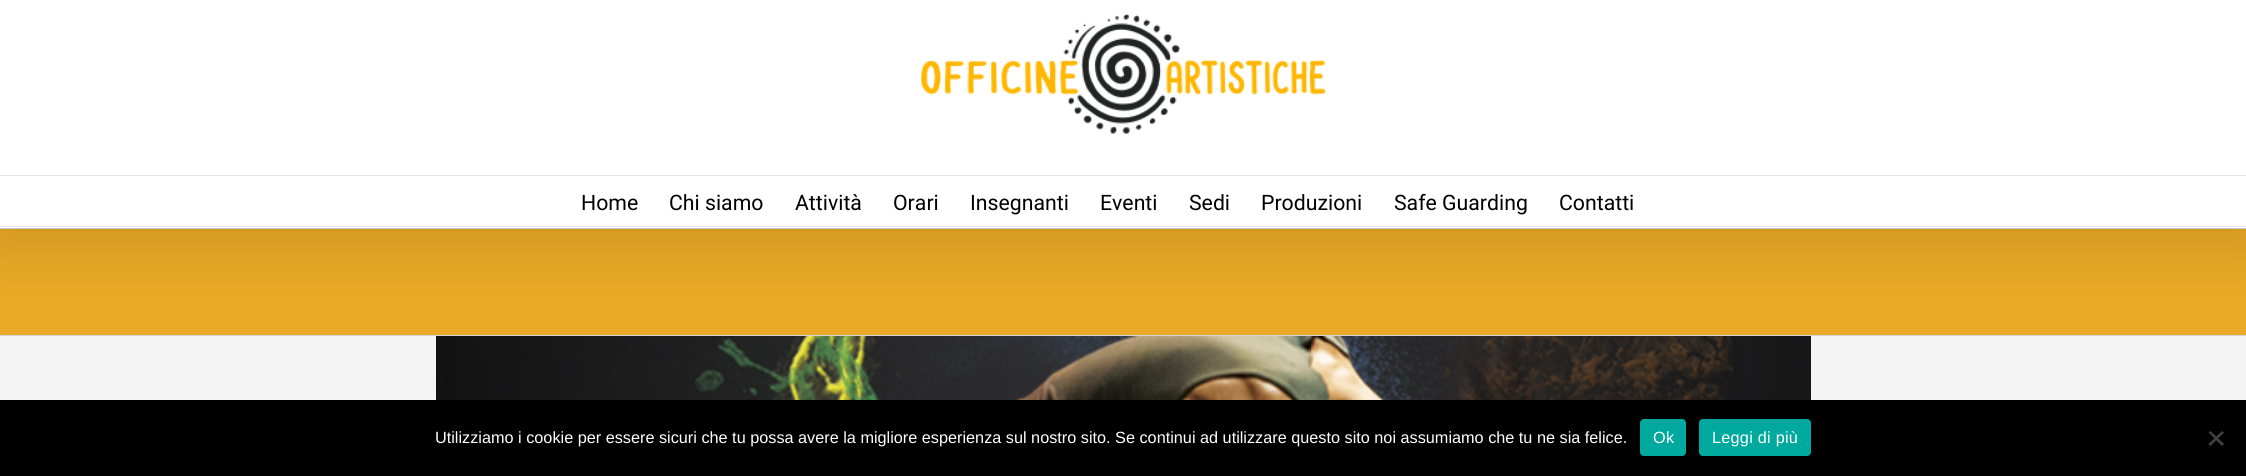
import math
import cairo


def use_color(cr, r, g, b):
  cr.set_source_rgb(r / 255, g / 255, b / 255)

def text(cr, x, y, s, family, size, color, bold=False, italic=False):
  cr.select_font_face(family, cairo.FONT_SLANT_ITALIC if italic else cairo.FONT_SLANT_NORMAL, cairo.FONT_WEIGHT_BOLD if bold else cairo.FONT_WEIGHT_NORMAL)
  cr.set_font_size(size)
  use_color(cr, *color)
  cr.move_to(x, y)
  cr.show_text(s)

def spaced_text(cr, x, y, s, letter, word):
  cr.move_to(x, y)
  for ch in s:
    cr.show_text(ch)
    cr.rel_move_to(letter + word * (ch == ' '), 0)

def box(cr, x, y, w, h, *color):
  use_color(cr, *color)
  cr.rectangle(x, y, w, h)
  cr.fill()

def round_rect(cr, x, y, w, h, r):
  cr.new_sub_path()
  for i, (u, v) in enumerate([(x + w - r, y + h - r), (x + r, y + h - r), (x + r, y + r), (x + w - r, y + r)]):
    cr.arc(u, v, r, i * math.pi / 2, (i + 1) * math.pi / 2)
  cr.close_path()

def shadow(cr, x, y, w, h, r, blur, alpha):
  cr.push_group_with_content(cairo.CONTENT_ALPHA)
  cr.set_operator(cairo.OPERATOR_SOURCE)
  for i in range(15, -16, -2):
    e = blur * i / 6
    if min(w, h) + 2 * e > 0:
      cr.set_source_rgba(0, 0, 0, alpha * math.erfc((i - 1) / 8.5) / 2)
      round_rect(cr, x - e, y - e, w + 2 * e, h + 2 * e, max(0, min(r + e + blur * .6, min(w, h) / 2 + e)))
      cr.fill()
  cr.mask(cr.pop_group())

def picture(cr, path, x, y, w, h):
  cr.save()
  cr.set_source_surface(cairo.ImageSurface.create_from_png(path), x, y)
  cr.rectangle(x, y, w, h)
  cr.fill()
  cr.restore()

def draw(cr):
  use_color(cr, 244, 244, 244)
  cr.paint()
  box(cr, 0, 229, 2246, 106, 233, 168, 37)
  box(cr, 0, 228, 2246, 1, 210, 211, 212)
  use_color(cr, 0, 0, 0)
  shadow(cr, 3, -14, 2241, 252, 0, 31, 0.14)
  box(cr, 0, 0, 2246, 175, 255, 255, 255)
  box(cr, 0, 175, 2246, 1, 229, 229, 229)
  picture(cr, "img_01.png", 921, 14, 405, 120)
  box(cr, 0, 176, 2246, 52, 255, 255, 255)
  box(cr, 0, 226, 2246, 1, 229, 229, 229)
  box(cr, 0, 335, 2246, 1, 210, 211, 212)
  picture(cr, "img_02.png", 436, 336, 1375, 64)
  box(cr, 0, 400, 2246, 76, 0, 0, 0)
  use_color(cr, 0, 169, 157)
  round_rect(cr, 1640, 419, 46, 37, 4)
  cr.fill()
  round_rect(cr, 1699, 419, 112, 37, 4)
  cr.fill()
  use_color(cr, 64, 64, 64)
  cr.new_path()
  cr.move_to(2222, 431)
  cr.line_to(2224, 432.5)
  cr.line_to(2210.5, 446)
  cr.line_to(2208.5, 444)
  cr.close_path()
  cr.fill()
  cr.new_path()
  cr.move_to(2208.5, 432.5)
  cr.line_to(2210.5, 431)
  cr.line_to(2224, 444)
  cr.line_to(2222, 446)
  cr.close_path()
  cr.fill()
  text(cr, 581, 210, "Home", "Roboto", 21.25, (0, 0, 0))
  text(cr, 669, 210, "Chi siamo", "Roboto", 21.25, (0, 0, 0))
  text(cr, 795, 210, "Attività", "Roboto", 21.25, (0, 0, 0))
  text(cr, 893, 210, "Orari", "Roboto", 21.25, (0, 0, 0))
  text(cr, 970, 210, "Insegnanti", "Roboto", 21.25, (0, 0, 0))
  text(cr, 1100, 210, "Eventi", "Roboto", 21.25, (0, 0, 0))
  text(cr, 1189, 210, "Sedi", "Roboto", 21.25, (0, 0, 0))
  text(cr, 1261, 210, "Produzioni", "Roboto", 21.25, (0, 0, 0))
  text(cr, 1394, 210, "Safe Guarding", "Roboto", 21.25, (0, 0, 0))
  text(cr, 1559, 210, "Contatti", "Roboto", 21.25, (0, 0, 0))
  text(cr, 435, 443, "Utilizziamo i cookie per essere sicuri che tu possa avere la migliore esperienza sul nostro sito. Se continui ad utilizzare questo sito noi assumiamo che tu ne sia felice.", "Liberation Sans", 16.25, (255, 255, 255))
  spaced_text(cr, 1653, 443, "Ok", 0.25, 0)
  spaced_text(cr, 1712, 443, "Leggi di più", 0.25, 0)


surface = cairo.ImageSurface(cairo.FORMAT_RGB24, 2246, 476)
cr = cairo.Context(surface)
options = cairo.FontOptions()
options.set_hint_metrics(cairo.HINT_METRICS_OFF)
options.set_hint_style(cairo.HINT_STYLE_NONE)
cr.set_font_options(options)
cr.set_miter_limit(4)
draw(cr)
surface.write_to_png("out.png")
